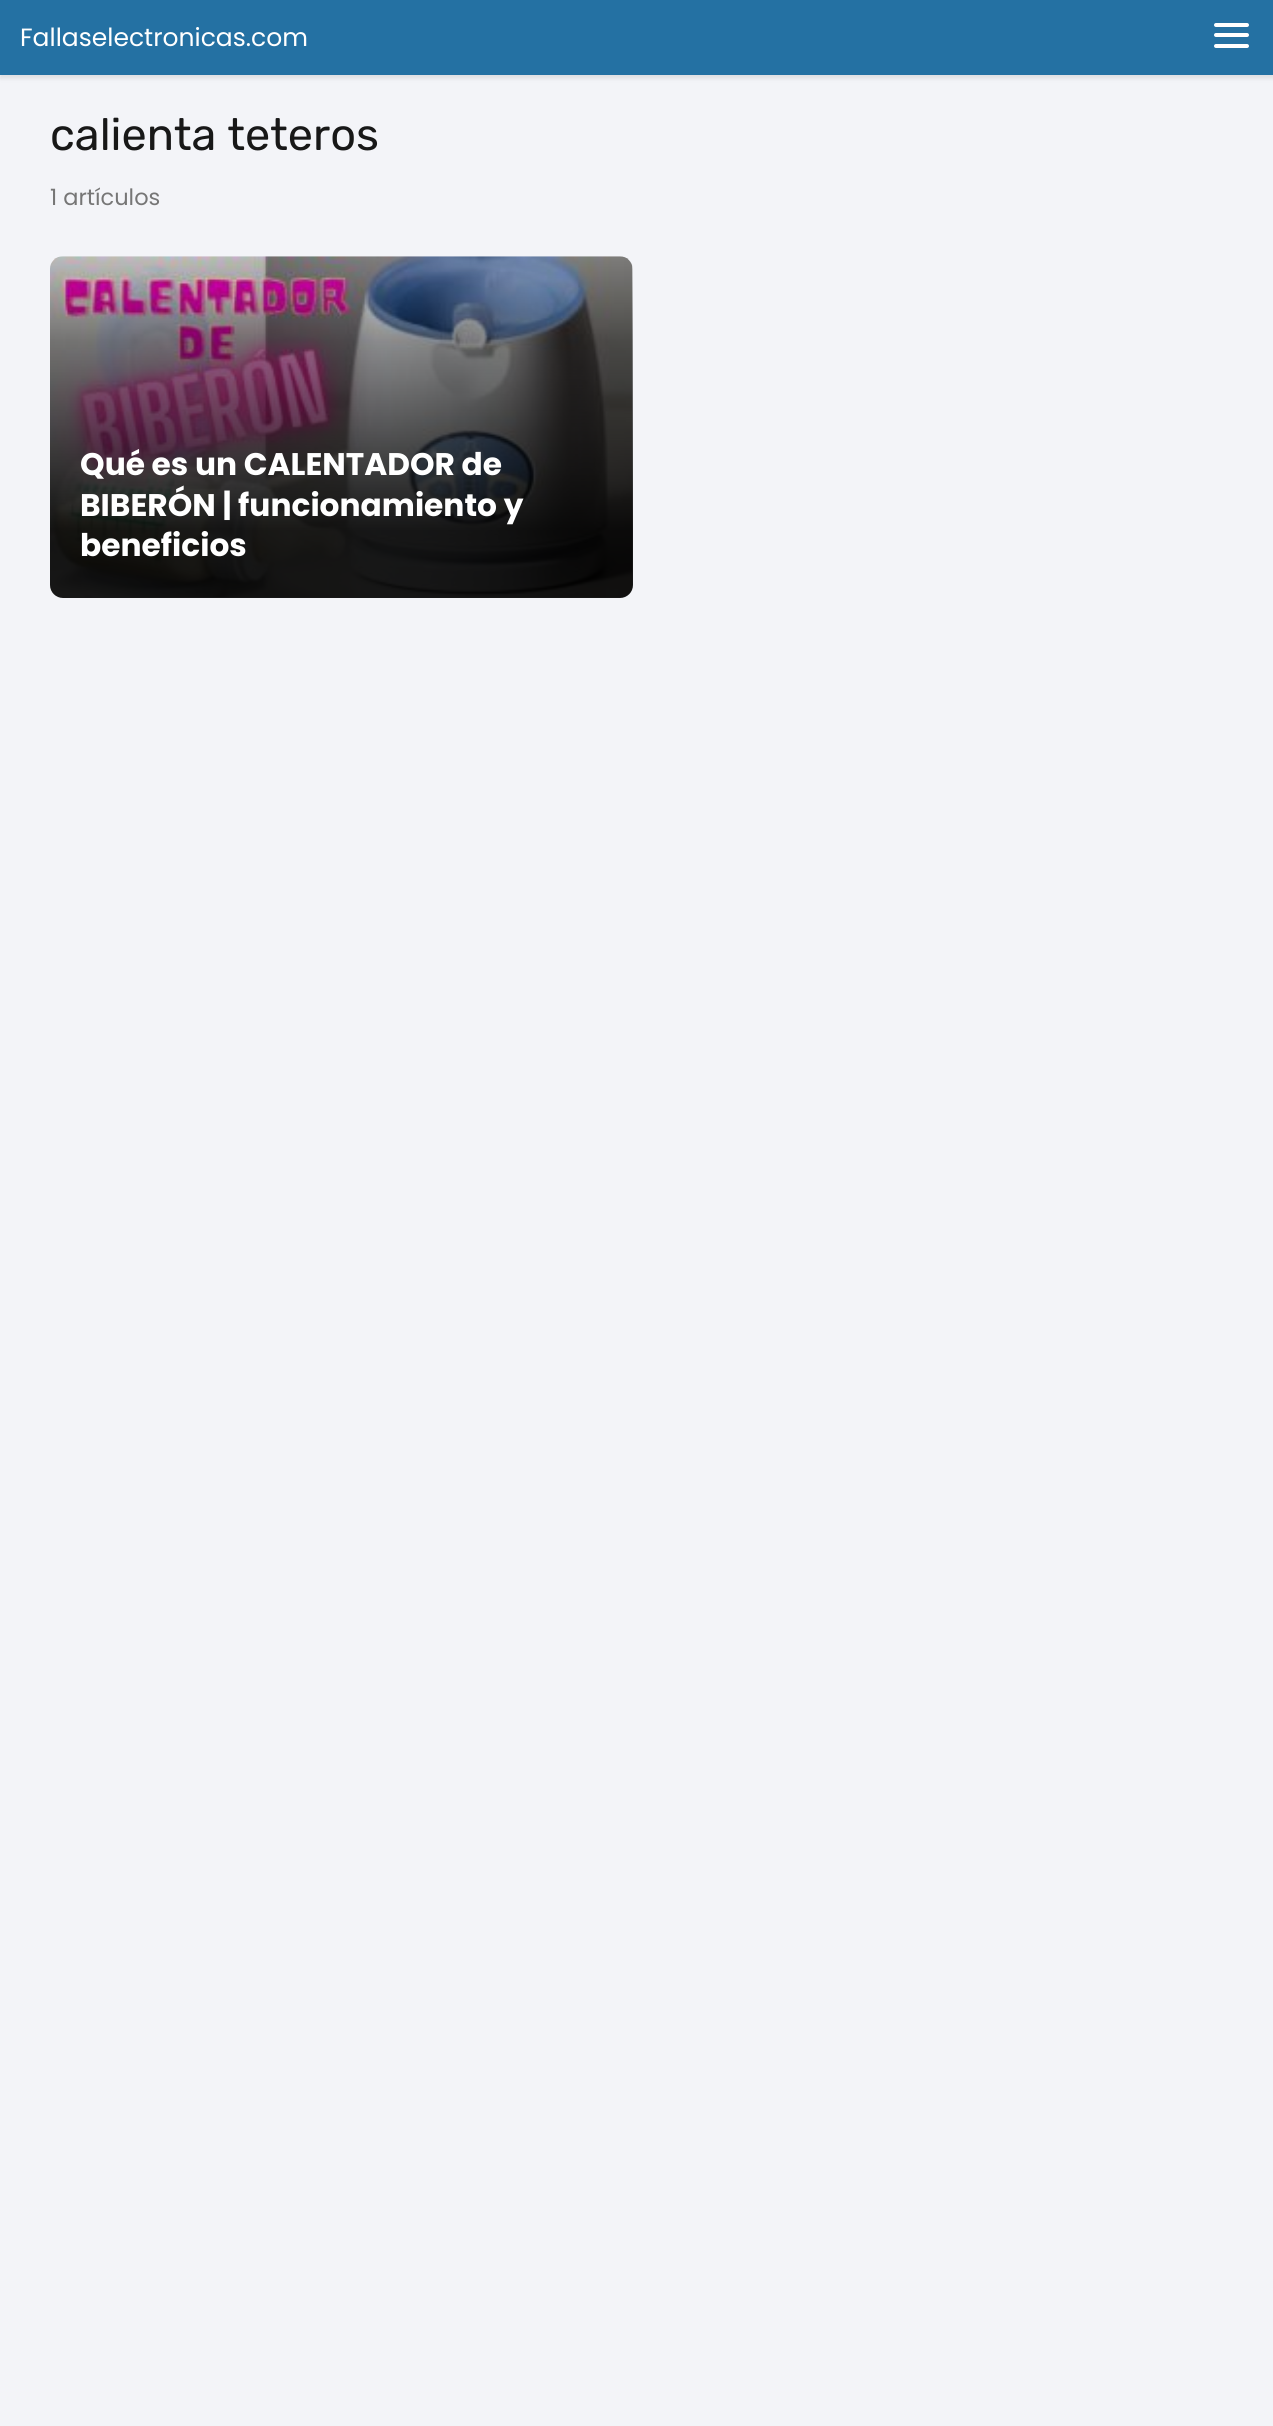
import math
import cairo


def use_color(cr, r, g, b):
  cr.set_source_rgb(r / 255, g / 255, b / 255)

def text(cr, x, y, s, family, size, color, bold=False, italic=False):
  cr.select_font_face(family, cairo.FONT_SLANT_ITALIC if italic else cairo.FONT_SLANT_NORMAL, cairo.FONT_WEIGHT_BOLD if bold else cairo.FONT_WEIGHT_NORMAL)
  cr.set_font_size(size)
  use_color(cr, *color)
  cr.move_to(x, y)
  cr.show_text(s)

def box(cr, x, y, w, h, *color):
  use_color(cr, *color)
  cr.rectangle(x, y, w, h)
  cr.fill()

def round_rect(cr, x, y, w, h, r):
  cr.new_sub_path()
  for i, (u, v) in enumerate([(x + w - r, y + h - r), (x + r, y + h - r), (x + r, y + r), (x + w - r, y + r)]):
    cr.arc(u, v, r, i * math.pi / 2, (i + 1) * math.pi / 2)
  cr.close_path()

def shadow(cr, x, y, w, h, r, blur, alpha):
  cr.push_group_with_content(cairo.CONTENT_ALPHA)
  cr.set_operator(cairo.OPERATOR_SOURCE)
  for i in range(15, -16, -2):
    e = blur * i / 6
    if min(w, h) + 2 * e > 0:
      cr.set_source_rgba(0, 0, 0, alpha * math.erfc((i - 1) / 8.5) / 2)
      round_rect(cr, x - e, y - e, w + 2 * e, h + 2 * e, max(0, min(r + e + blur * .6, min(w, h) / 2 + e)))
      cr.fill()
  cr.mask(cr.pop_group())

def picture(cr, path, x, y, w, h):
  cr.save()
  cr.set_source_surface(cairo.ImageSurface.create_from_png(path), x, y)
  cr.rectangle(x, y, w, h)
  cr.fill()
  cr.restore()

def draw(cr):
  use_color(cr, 243, 244, 248)
  cr.paint()
  use_color(cr, 0, 0, 0)
  shadow(cr, 0, 3, 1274, 75, 0, 2.5, 0.1)
  box(cr, 0, 0, 1273, 75, 36, 113, 163)
  use_color(cr, 255, 255, 255)
  round_rect(cr, 1214, 23, 35, 4, 2)
  cr.fill()
  round_rect(cr, 1214, 33, 35, 4, 2)
  cr.fill()
  round_rect(cr, 1214, 44, 35, 4, 2)
  cr.fill()
  picture(cr, "img_01.png", 50, 256, 583, 342)
  gradient = cairo.LinearGradient(341, 598, 341, 256)
  gradient.add_color_stop_rgba(0.2, 0, 0, 0, 0.9)
  gradient.add_color_stop_rgba(0.75, 0, 0, 0, 0.4)
  gradient.add_color_stop_rgba(1, 0, 0, 0, 0)
  cr.set_source(gradient)
  round_rect(cr, 50, 256, 583, 342, 13)
  cr.fill()
  text(cr, 20, 46, "Fallaselectronicas.com", "Poppins", 25, (255, 255, 255))
  text(cr, 50, 150, "calienta teteros", "Rubik Light", 45, (24, 24, 24))
  text(cr, 50, 205, "1 artículos", "Poppins", 22.5, (118, 118, 118))
  text(cr, 80, 475, "Qué es un CALENTADOR de", "Poppins", 31.25, (255, 255, 255), bold=True)
  text(cr, 80, 516, "BIBERÓN | funcionamiento y", "Poppins", 31.25, (255, 255, 255), bold=True)
  text(cr, 80, 556, "beneficios", "Poppins", 31.25, (255, 255, 255), bold=True)


surface = cairo.ImageSurface(cairo.FORMAT_RGB24, 1273, 2426)
cr = cairo.Context(surface)
options = cairo.FontOptions()
options.set_hint_metrics(cairo.HINT_METRICS_OFF)
options.set_hint_style(cairo.HINT_STYLE_NONE)
cr.set_font_options(options)
cr.set_miter_limit(4)
draw(cr)
surface.write_to_png("out.png")
